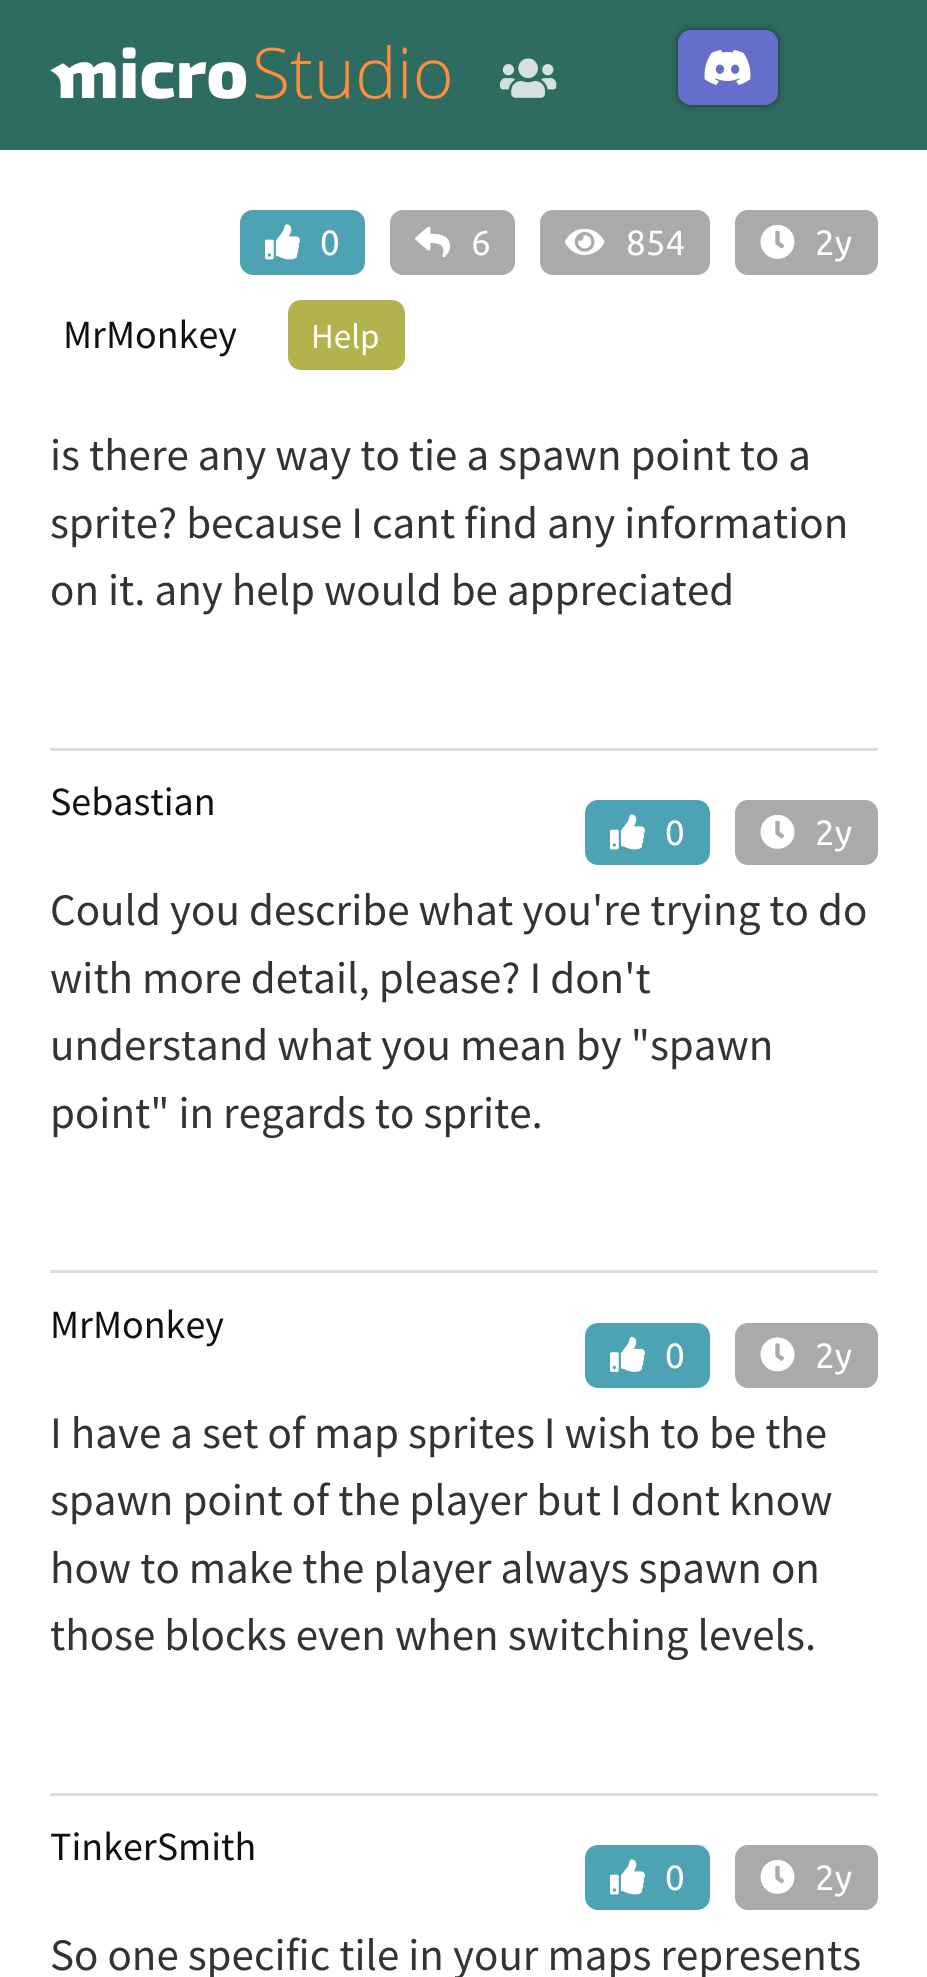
import math
import cairo


def use_color(cr, r, g, b):
  cr.set_source_rgb(r / 255, g / 255, b / 255)

def text(cr, x, y, s, family, size, color, bold=False, italic=False):
  cr.select_font_face(family, cairo.FONT_SLANT_ITALIC if italic else cairo.FONT_SLANT_NORMAL, cairo.FONT_WEIGHT_BOLD if bold else cairo.FONT_WEIGHT_NORMAL)
  cr.set_font_size(size)
  use_color(cr, *color)
  cr.move_to(x, y)
  cr.show_text(s)

def box(cr, x, y, w, h, *color):
  use_color(cr, *color)
  cr.rectangle(x, y, w, h)
  cr.fill()

def round_rect(cr, x, y, w, h, r):
  cr.new_sub_path()
  for i, (u, v) in enumerate([(x + w - r, y + h - r), (x + r, y + h - r), (x + r, y + r), (x + w - r, y + r)]):
    cr.arc(u, v, r, i * math.pi / 2, (i + 1) * math.pi / 2)
  cr.close_path()

def shadow(cr, x, y, w, h, r, blur, alpha):
  cr.push_group_with_content(cairo.CONTENT_ALPHA)
  cr.set_operator(cairo.OPERATOR_SOURCE)
  for i in range(15, -16, -2):
    e = blur * i / 6
    if min(w, h) + 2 * e > 0:
      cr.set_source_rgba(0, 0, 0, alpha * math.erfc((i - 1) / 8.5) / 2)
      round_rect(cr, x - e, y - e, w + 2 * e, h + 2 * e, max(0, min(r + e + blur * .6, min(w, h) / 2 + e)))
      cr.fill()
  cr.mask(cr.pop_group())

def picture(cr, path, x, y, w, h):
  cr.save()
  cr.set_source_surface(cairo.ImageSurface.create_from_png(path), x, y)
  cr.rectangle(x, y, w, h)
  cr.fill()
  cr.restore()

def draw(cr):
  use_color(cr, 255, 255, 255)
  cr.paint()
  box(cr, 0, 0, 927, 150, 46, 107, 97)
  picture(cr, "img_01.png", 50, 45, 400, 54)
  picture(cr, "img_02.png", 500, 58, 57, 40)
  use_color(cr, 0, 0, 0)
  shadow(cr, 678, 30, 100, 75, 13, 4, 0.5)
  use_color(cr, 102, 110, 204)
  round_rect(cr, 678, 30, 100, 75, 13)
  cr.fill()
  picture(cr, "img_03.png", 704, 50, 47, 35)
  box(cr, 50, 748, 828, 3, 221, 221, 221)
  use_color(cr, 77, 162, 179)
  round_rect(cr, 240, 210, 125, 65, 13)
  cr.fill()
  picture(cr, "img_04.png", 265, 224, 35, 36)
  use_color(cr, 170, 170, 170)
  round_rect(cr, 390, 210, 125, 65, 13)
  cr.fill()
  picture(cr, "img_05.png", 415, 226, 36, 32)
  round_rect(cr, 540, 210, 170, 65, 13)
  cr.fill()
  picture(cr, "img_06.png", 565, 228, 40, 27)
  round_rect(cr, 735, 210, 143, 65, 13)
  cr.fill()
  picture(cr, "img_07.png", 760, 224, 35, 35)
  use_color(cr, 179, 179, 77)
  round_rect(cr, 288, 300, 117, 70, 13)
  cr.fill()
  box(cr, 50, 1270, 828, 3, 221, 221, 221)
  use_color(cr, 77, 162, 179)
  round_rect(cr, 585, 800, 125, 65, 13)
  cr.fill()
  picture(cr, "img_04.png", 610, 814, 35, 36)
  use_color(cr, 170, 170, 170)
  round_rect(cr, 735, 800, 143, 65, 13)
  cr.fill()
  picture(cr, "img_07.png", 760, 814, 35, 35)
  box(cr, 50, 1793, 828, 3, 221, 221, 221)
  use_color(cr, 77, 162, 179)
  round_rect(cr, 585, 1323, 125, 65, 13)
  cr.fill()
  picture(cr, "img_08.png", 610, 1336, 35, 36)
  use_color(cr, 170, 170, 170)
  round_rect(cr, 735, 1323, 143, 65, 13)
  cr.fill()
  picture(cr, "img_09.png", 760, 1337, 35, 35)
  use_color(cr, 77, 162, 179)
  round_rect(cr, 585, 1845, 125, 65, 13)
  cr.fill()
  picture(cr, "img_04.png", 610, 1859, 35, 36)
  use_color(cr, 170, 170, 170)
  round_rect(cr, 735, 1845, 143, 65, 13)
  cr.fill()
  picture(cr, "img_07.png", 760, 1859, 35, 35)
  text(cr, 320, 255, "0", "Ubuntu", 35, (255, 255, 255))
  text(cr, 471, 255, "6", "Ubuntu", 35, (255, 255, 255))
  text(cr, 626, 255, "854", "Ubuntu", 35, (255, 255, 255))
  text(cr, 815, 255, "2y", "Ubuntu", 35, (255, 255, 255))
  text(cr, 63, 348, "MrMonkey", "Source Sans Pro", 40, (17, 17, 17))
  text(cr, 311, 348, "Help", "Source Sans Pro", 35, (255, 255, 255))
  text(cr, 50, 470, "is there any way to tie a spawn point to a", "Source Sans Pro", 45, (51, 51, 51))
  text(cr, 50, 538, "sprite? because I cant find any information", "Source Sans Pro", 45, (51, 51, 51))
  text(cr, 50, 605, "on it. any help would be appreciated", "Source Sans Pro", 45, (51, 51, 51))
  text(cr, 50, 815, "Sebastian", "Source Sans Pro", 40, (17, 17, 17))
  text(cr, 665, 845, "0", "Ubuntu", 35, (255, 255, 255))
  text(cr, 815, 845, "2y", "Ubuntu", 35, (255, 255, 255))
  text(cr, 50, 925, "Could you describe what you're trying to do", "Source Sans Pro", 45, (51, 51, 51))
  text(cr, 50, 993, "with more detail, please? I don't", "Source Sans Pro", 45, (51, 51, 51))
  text(cr, 50, 1060, "understand what you mean by \"spawn", "Source Sans Pro", 45, (51, 51, 51))
  text(cr, 50, 1128, "point\" in regards to sprite.", "Source Sans Pro", 45, (51, 51, 51))
  text(cr, 50, 1338, "MrMonkey", "Source Sans Pro", 40, (17, 17, 17))
  text(cr, 665, 1368, "0", "Ubuntu", 35, (255, 255, 255))
  text(cr, 815, 1368, "2y", "Ubuntu", 35, (255, 255, 255))
  text(cr, 50, 1448, "I have a set of map sprites I wish to be the", "Source Sans Pro", 45, (51, 51, 51))
  text(cr, 50, 1515, "spawn point of the player but I dont know", "Source Sans Pro", 45, (51, 51, 51))
  text(cr, 50, 1583, "how to make the player always spawn on", "Source Sans Pro", 45, (51, 51, 51))
  text(cr, 50, 1650, "those blocks even when switching levels.", "Source Sans Pro", 45, (51, 51, 51))
  text(cr, 50, 1860, "TinkerSmith", "Source Sans Pro", 40, (17, 17, 17))
  text(cr, 665, 1890, "0", "Ubuntu", 35, (255, 255, 255))
  text(cr, 815, 1890, "2y", "Ubuntu", 35, (255, 255, 255))
  text(cr, 50, 1970, "So one specific tile in your maps represents", "Source Sans Pro", 45, (51, 51, 51))


surface = cairo.ImageSurface(cairo.FORMAT_RGB24, 927, 1977)
cr = cairo.Context(surface)
options = cairo.FontOptions()
options.set_hint_metrics(cairo.HINT_METRICS_OFF)
options.set_hint_style(cairo.HINT_STYLE_NONE)
cr.set_font_options(options)
cr.set_miter_limit(4)
draw(cr)
surface.write_to_png("out.png")
